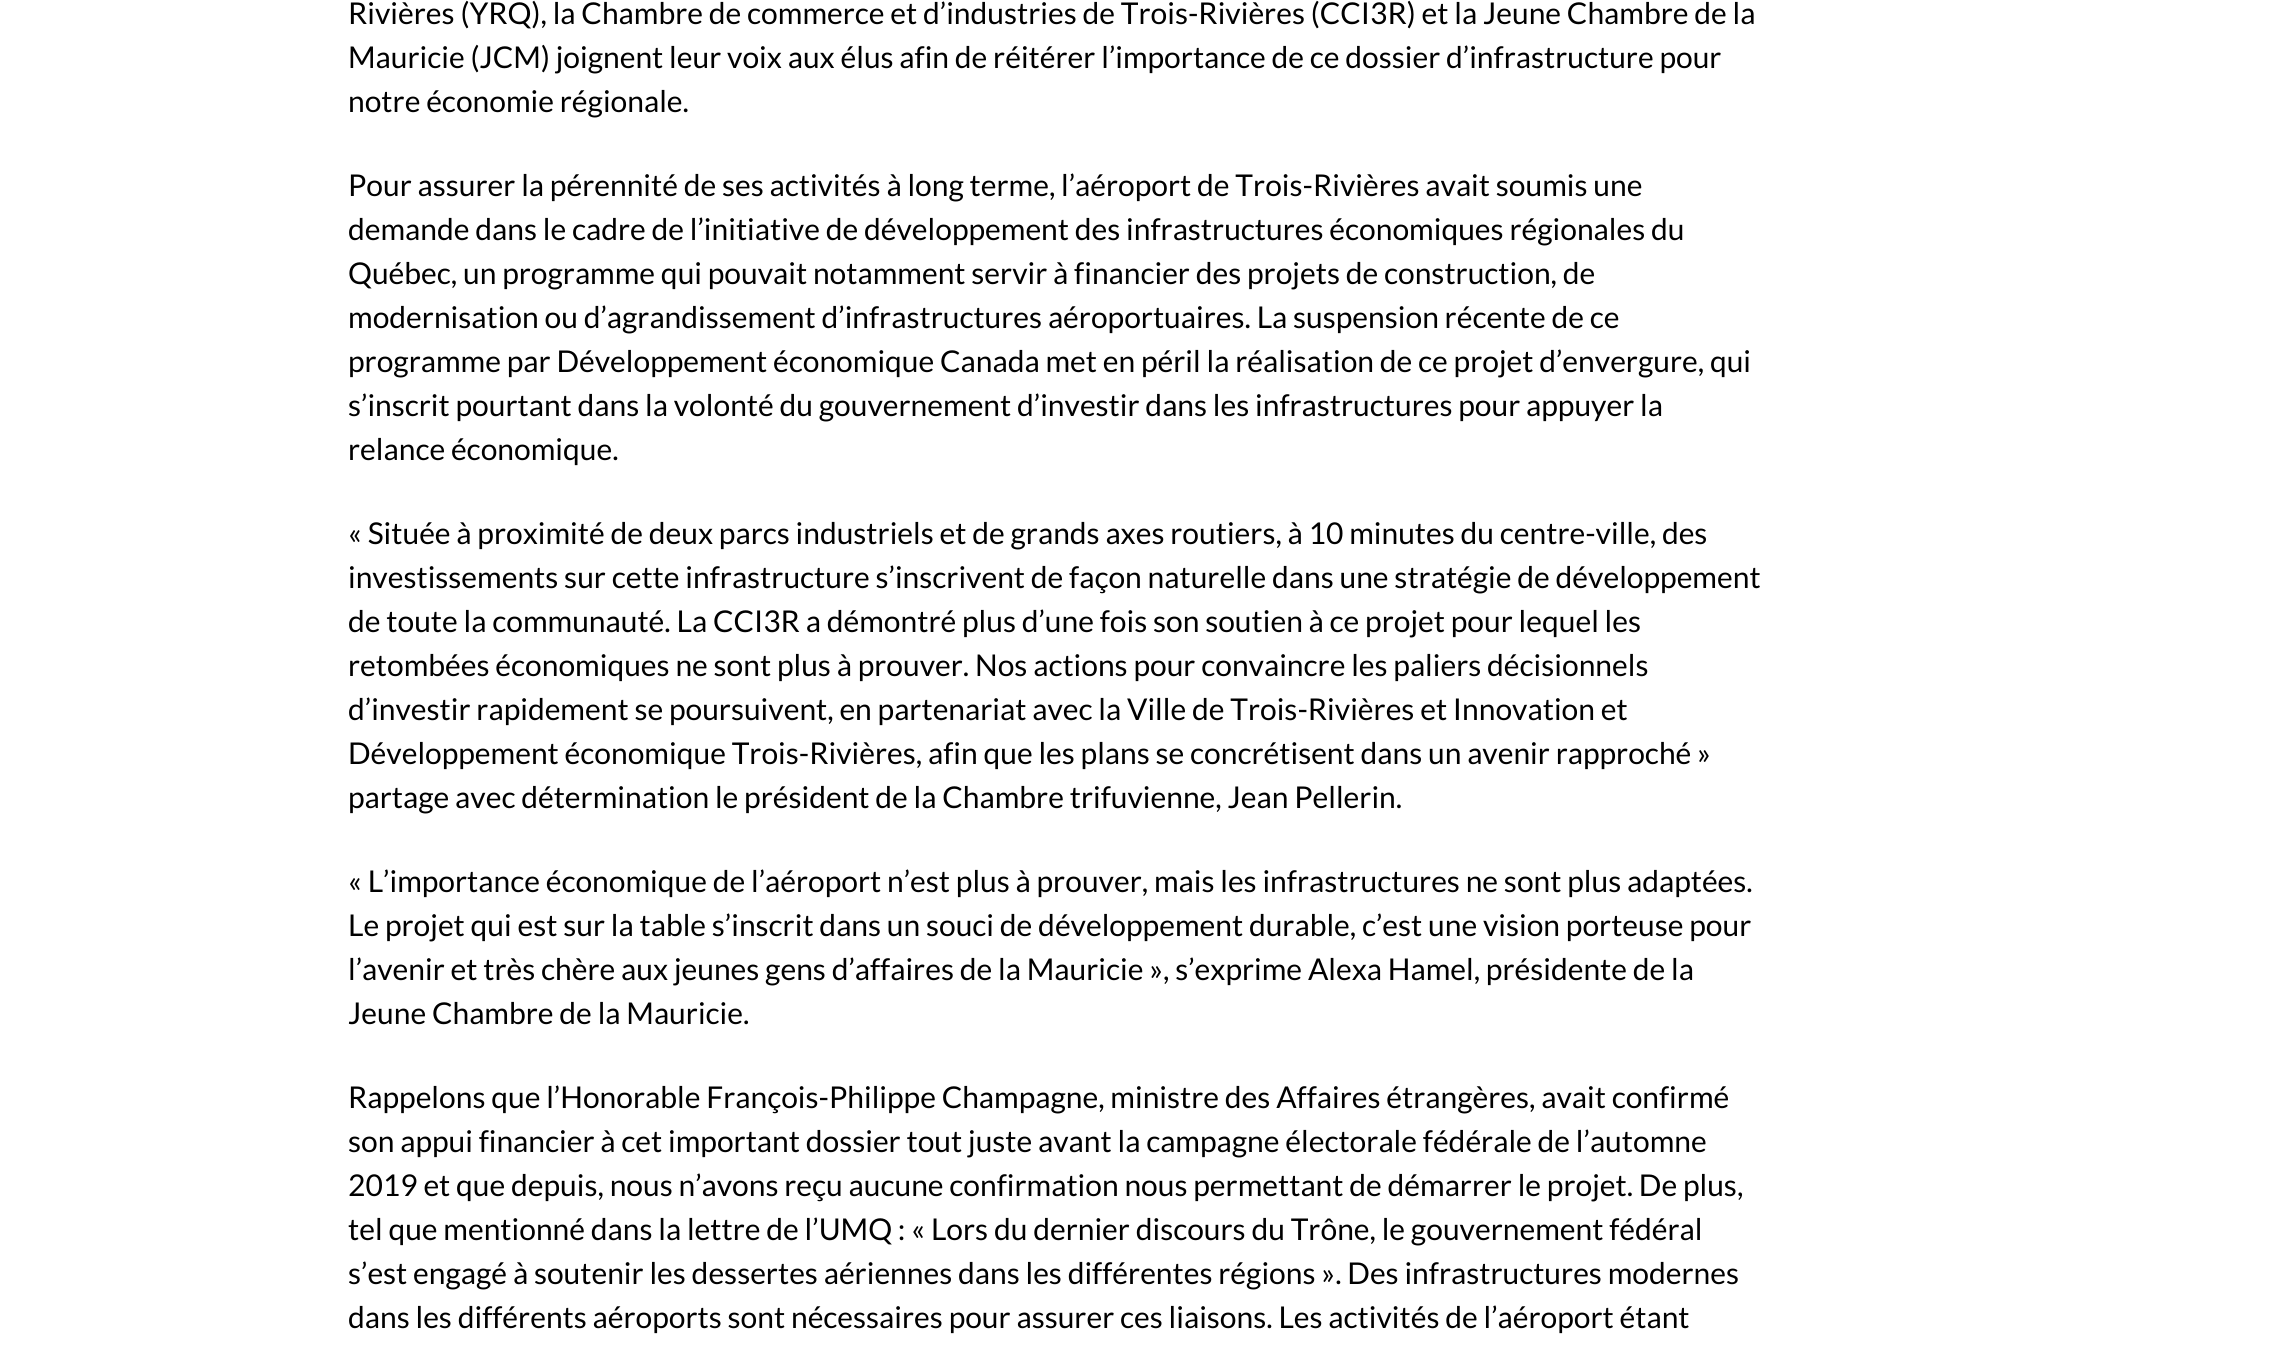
import math
import cairo


def use_color(cr, r, g, b):
  cr.set_source_rgb(r / 255, g / 255, b / 255)

def text(cr, x, y, s, family, size, color, bold=False, italic=False):
  cr.select_font_face(family, cairo.FONT_SLANT_ITALIC if italic else cairo.FONT_SLANT_NORMAL, cairo.FONT_WEIGHT_BOLD if bold else cairo.FONT_WEIGHT_NORMAL)
  cr.set_font_size(size)
  use_color(cr, *color)
  cr.move_to(x, y)
  cr.show_text(s)

def draw(cr):
  use_color(cr, 255, 255, 255)
  cr.paint()
  text(cr, 348, 24, "Rivières (YRQ), la Chambre de commerce et d’industries de Trois-Rivières (CCI3R) et la Jeune Chambre de la", "Lato", 30, (0, 0, 0))
  text(cr, 348, 68, "Mauricie (JCM) joignent leur voix aux élus afin de réitérer l’importance de ce dossier d’infrastructure pour", "Lato", 30, (0, 0, 0))
  text(cr, 348, 112, "notre économie régionale.", "Lato", 30, (0, 0, 0))
  text(cr, 348, 196, "Pour assurer la pérennité de ses activités à long terme, l’aéroport de Trois-Rivières avait soumis une", "Lato", 30, (0, 0, 0))
  text(cr, 348, 240, "demande dans le cadre de l’initiative de développement des infrastructures économiques régionales du", "Lato", 30, (0, 0, 0))
  text(cr, 348, 284, "Québec, un programme qui pouvait notamment servir à financier des projets de construction, de", "Lato", 30, (0, 0, 0))
  text(cr, 348, 328, "modernisation ou d’agrandissement d’infrastructures aéroportuaires. La suspension récente de ce", "Lato", 30, (0, 0, 0))
  text(cr, 348, 372, "programme par Développement économique Canada met en péril la réalisation de ce projet d’envergure, qui", "Lato", 30, (0, 0, 0))
  text(cr, 348, 416, "s’inscrit pourtant dans la volonté du gouvernement d’investir dans les infrastructures pour appuyer la", "Lato", 30, (0, 0, 0))
  text(cr, 348, 460, "relance économique.", "Lato", 30, (0, 0, 0))
  text(cr, 348, 544, "« Située à proximité de deux parcs industriels et de grands axes routiers, à 10 minutes du centre-ville, des", "Lato", 30, (0, 0, 0))
  text(cr, 348, 588, "investissements sur cette infrastructure s’inscrivent de façon naturelle dans une stratégie de développement", "Lato", 30, (0, 0, 0))
  text(cr, 348, 632, "de toute la communauté. La CCI3R a démontré plus d’une fois son soutien à ce projet pour lequel les", "Lato", 30, (0, 0, 0))
  text(cr, 348, 676, "retombées économiques ne sont plus à prouver. Nos actions pour convaincre les paliers décisionnels", "Lato", 30, (0, 0, 0))
  text(cr, 348, 720, "d’investir rapidement se poursuivent, en partenariat avec la Ville de Trois-Rivières et Innovation et", "Lato", 30, (0, 0, 0))
  text(cr, 348, 764, "Développement économique Trois-Rivières, afin que les plans se concrétisent dans un avenir rapproché »", "Lato", 30, (0, 0, 0))
  text(cr, 348, 808, "partage avec détermination le président de la Chambre trifuvienne, Jean Pellerin.", "Lato", 30, (0, 0, 0))
  text(cr, 348, 892, "« L’importance économique de l’aéroport n’est plus à prouver, mais les infrastructures ne sont plus adaptées.", "Lato", 30, (0, 0, 0))
  text(cr, 348, 936, "Le projet qui est sur la table s’inscrit dans un souci de développement durable, c’est une vision porteuse pour", "Lato", 30, (0, 0, 0))
  text(cr, 348, 980, "l’avenir et très chère aux jeunes gens d’affaires de la Mauricie », s’exprime Alexa Hamel, présidente de la", "Lato", 30, (0, 0, 0))
  text(cr, 348, 1024, "Jeune Chambre de la Mauricie.", "Lato", 30, (0, 0, 0))
  text(cr, 348, 1108, "Rappelons que l’Honorable François-Philippe Champagne, ministre des Affaires étrangères, avait confirmé", "Lato", 30, (0, 0, 0))
  text(cr, 348, 1152, "son appui financier à cet important dossier tout juste avant la campagne électorale fédérale de l’automne", "Lato", 30, (0, 0, 0))
  text(cr, 348, 1196, "2019 et que depuis, nous n’avons reçu aucune confirmation nous permettant de démarrer le projet. De plus,", "Lato", 30, (0, 0, 0))
  text(cr, 348, 1240, "tel que mentionné dans la lettre de l’UMQ : « Lors du dernier discours du Trône, le gouvernement fédéral", "Lato", 30, (0, 0, 0))
  text(cr, 348, 1284, "s’est engagé à soutenir les dessertes aériennes dans les différentes régions ». Des infrastructures modernes", "Lato", 30, (0, 0, 0))
  text(cr, 348, 1328, "dans les différents aéroports sont nécessaires pour assurer ces liaisons. Les activités de l’aéroport étant", "Lato", 30, (0, 0, 0))


surface = cairo.ImageSurface(cairo.FORMAT_RGB24, 2295, 1351)
cr = cairo.Context(surface)
options = cairo.FontOptions()
options.set_hint_metrics(cairo.HINT_METRICS_OFF)
options.set_hint_style(cairo.HINT_STYLE_NONE)
cr.set_font_options(options)
cr.set_miter_limit(4)
draw(cr)
surface.write_to_png("out.png")
